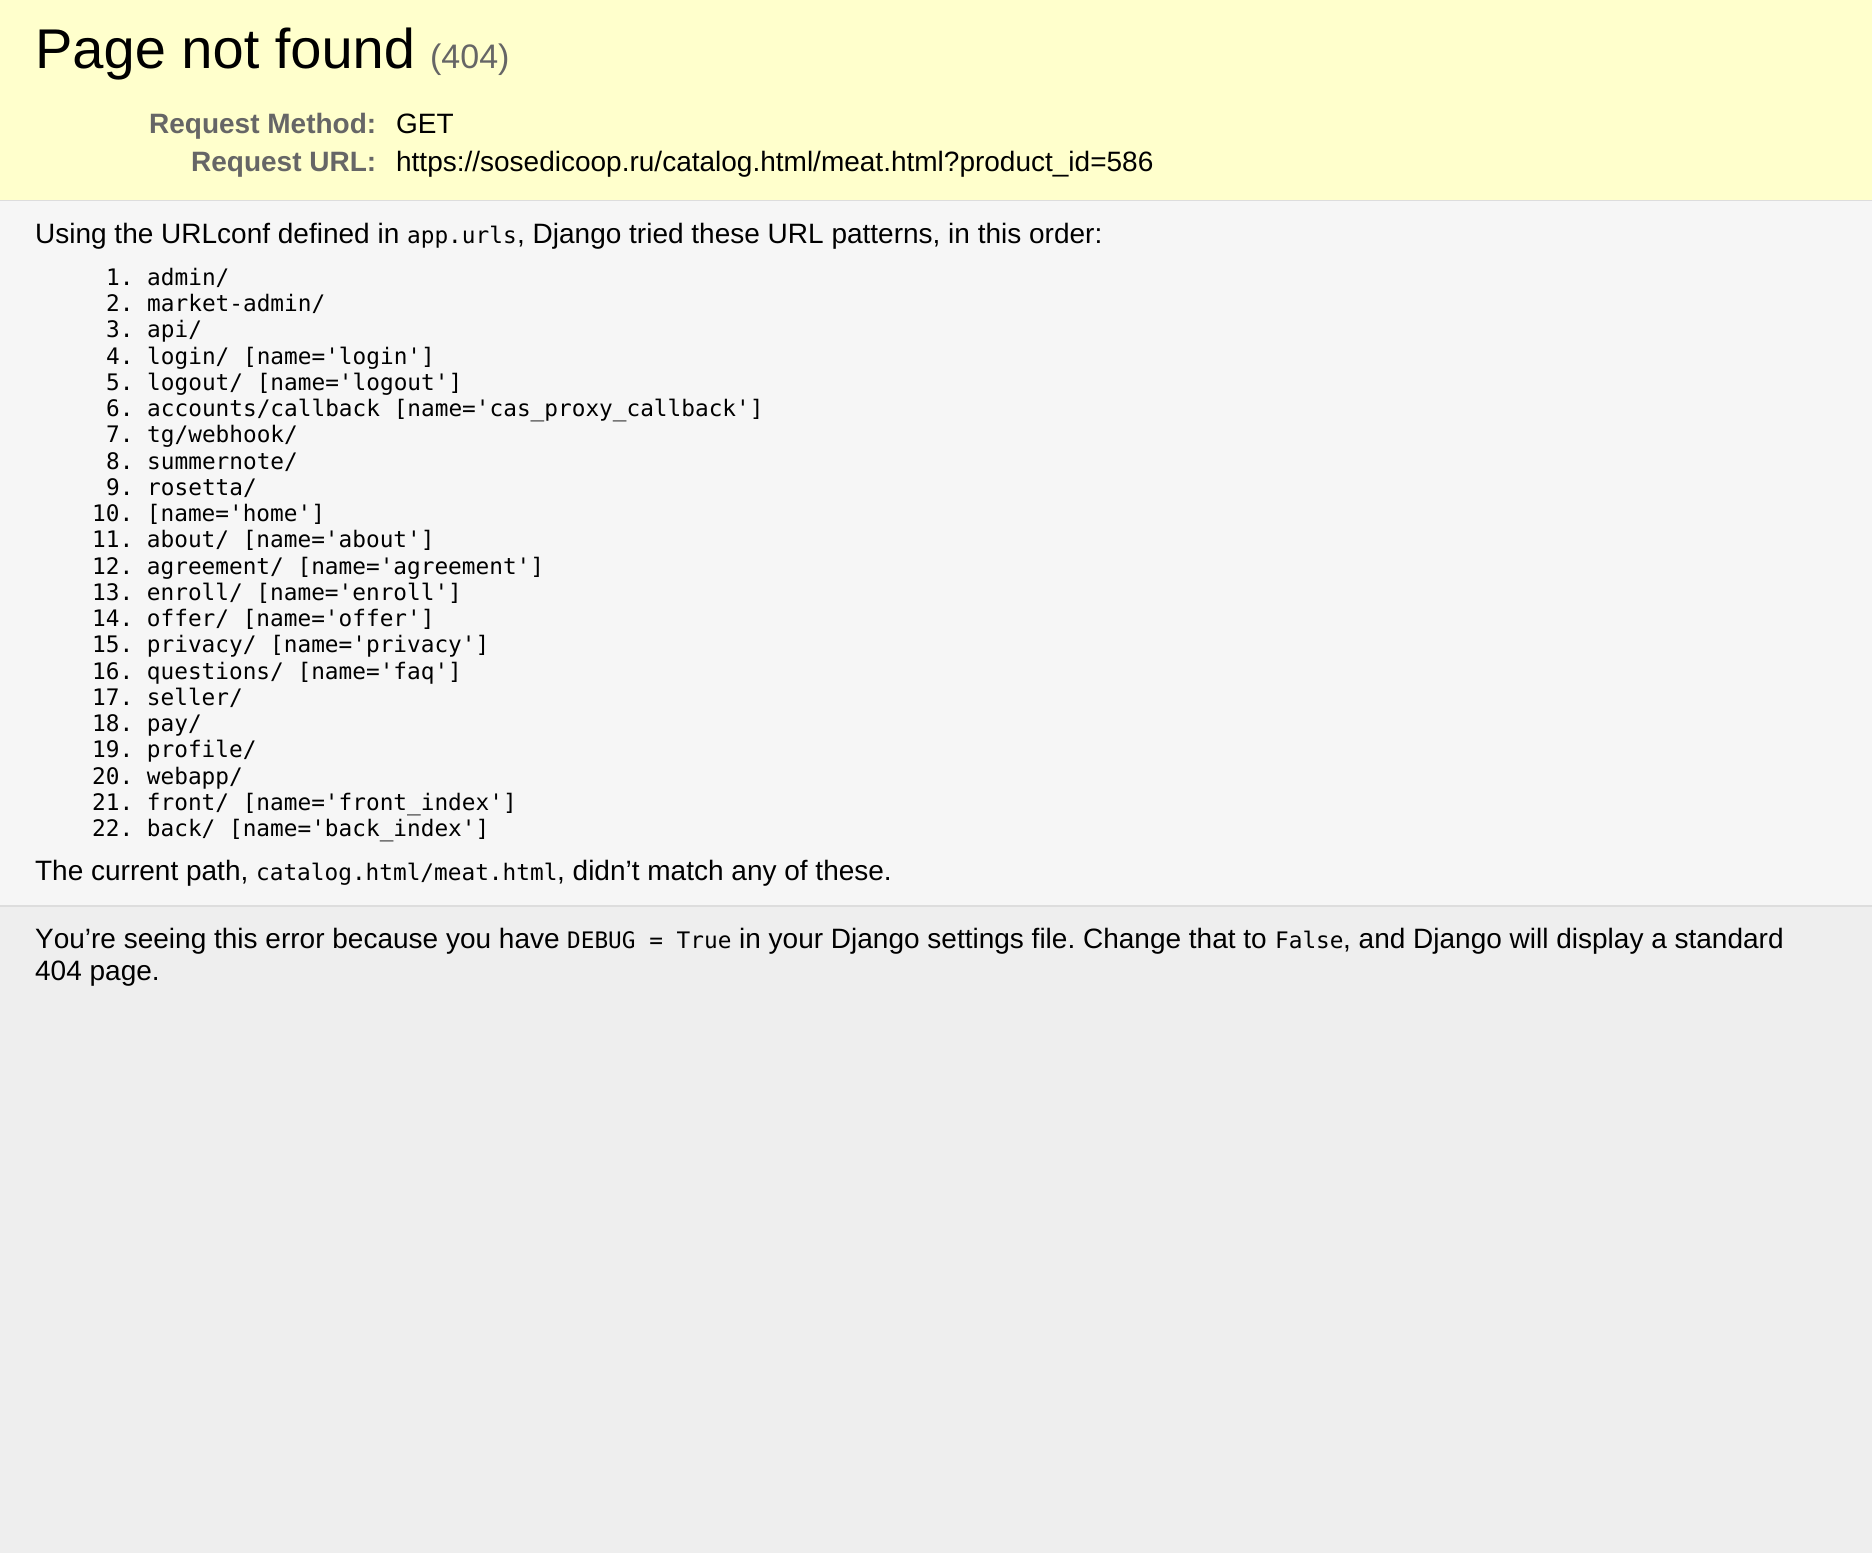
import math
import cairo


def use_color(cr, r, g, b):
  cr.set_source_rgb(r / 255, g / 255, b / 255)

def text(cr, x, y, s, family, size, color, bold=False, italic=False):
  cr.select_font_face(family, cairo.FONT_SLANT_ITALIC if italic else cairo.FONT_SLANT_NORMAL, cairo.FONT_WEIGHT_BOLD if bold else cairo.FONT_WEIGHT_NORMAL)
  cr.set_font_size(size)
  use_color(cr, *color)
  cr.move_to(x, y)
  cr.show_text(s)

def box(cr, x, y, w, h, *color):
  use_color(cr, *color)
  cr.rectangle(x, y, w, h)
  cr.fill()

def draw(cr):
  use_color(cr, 238, 238, 238)
  cr.paint()
  box(cr, 0, 0, 1872, 200, 255, 255, 204)
  box(cr, 0, 200, 1872, 1, 221, 221, 221)
  box(cr, 0, 201, 1872, 704, 246, 246, 246)
  box(cr, 0, 905, 1872, 2, 221, 221, 221)
  text(cr, 35, 68, "Page not found", "Liberation Sans", 56, (0, 0, 0))
  text(cr, 430, 68, "(404)", "Liberation Sans", 34, (102, 102, 102))
  text(cr, 149, 133, "Request Method:", "Liberation Sans", 28, (102, 102, 102), bold=True)
  text(cr, 396, 133, "GET", "Liberation Sans", 28, (0, 0, 0))
  text(cr, 191, 171, "Request URL:", "Liberation Sans", 28, (102, 102, 102), bold=True)
  text(cr, 396, 171, "https://sosedicoop.ru/catalog.html/meat.html?product_id=586", "Liberation Sans", 28, (0, 0, 0))
  text(cr, 35, 243, "Using the URLconf defined in", "Liberation Sans", 28, (0, 0, 0))
  text(cr, 407, 243, "app.urls", "DejaVu Sans Mono", 22.75, (0, 0, 0))
  text(cr, 517, 243, ", Django tried these URL patterns, in this order:", "Liberation Sans", 28, (0, 0, 0))
  text(cr, 106, 285, "1. admin/", "DejaVu Sans Mono", 22.75, (0, 0, 0))
  text(cr, 106, 311, "2. market-admin/", "DejaVu Sans Mono", 22.75, (0, 0, 0))
  text(cr, 106, 337, "3. api/", "DejaVu Sans Mono", 22.75, (0, 0, 0))
  text(cr, 106, 364, "4. login/ [name='login']", "DejaVu Sans Mono", 22.75, (0, 0, 0))
  text(cr, 106, 390, "5. logout/ [name='logout']", "DejaVu Sans Mono", 22.75, (0, 0, 0))
  text(cr, 106, 416, "6. accounts/callback [name='cas_proxy_callback']", "DejaVu Sans Mono", 22.75, (0, 0, 0))
  text(cr, 106, 442, "7. tg/webhook/", "DejaVu Sans Mono", 22.75, (0, 0, 0))
  text(cr, 106, 469, "8. summernote/", "DejaVu Sans Mono", 22.75, (0, 0, 0))
  text(cr, 106, 495, "9. rosetta/", "DejaVu Sans Mono", 22.75, (0, 0, 0))
  text(cr, 92, 521, "10. [name='home']", "DejaVu Sans Mono", 22.75, (0, 0, 0))
  text(cr, 92, 547, "11. about/ [name='about']", "DejaVu Sans Mono", 22.75, (0, 0, 0))
  text(cr, 92, 574, "12. agreement/ [name='agreement']", "DejaVu Sans Mono", 22.75, (0, 0, 0))
  text(cr, 92, 600, "13. enroll/ [name='enroll']", "DejaVu Sans Mono", 22.75, (0, 0, 0))
  text(cr, 92, 626, "14. offer/ [name='offer']", "DejaVu Sans Mono", 22.75, (0, 0, 0))
  text(cr, 92, 652, "15. privacy/ [name='privacy']", "DejaVu Sans Mono", 22.75, (0, 0, 0))
  text(cr, 92, 679, "16. questions/ [name='faq']", "DejaVu Sans Mono", 22.75, (0, 0, 0))
  text(cr, 92, 705, "17. seller/", "DejaVu Sans Mono", 22.75, (0, 0, 0))
  text(cr, 92, 731, "18. pay/", "DejaVu Sans Mono", 22.75, (0, 0, 0))
  text(cr, 92, 757, "19. profile/", "DejaVu Sans Mono", 22.75, (0, 0, 0))
  text(cr, 92, 784, "20. webapp/", "DejaVu Sans Mono", 22.75, (0, 0, 0))
  text(cr, 92, 810, "21. front/ [name='front_index']", "DejaVu Sans Mono", 22.75, (0, 0, 0))
  text(cr, 92, 836, "22. back/ [name='back_index']", "DejaVu Sans Mono", 22.75, (0, 0, 0))
  text(cr, 35, 880, "The current path,", "Liberation Sans", 28, (0, 0, 0))
  text(cr, 256, 880, "catalog.html/meat.html", "DejaVu Sans Mono", 22.75, (0, 0, 0))
  text(cr, 557, 880, ", didn’t match any of these.", "Liberation Sans", 28, (0, 0, 0))
  text(cr, 35, 948, "You’re seeing this error because you have", "Liberation Sans", 28, (0, 0, 0))
  text(cr, 567, 948, "DEBUG = True", "DejaVu Sans Mono", 22.75, (0, 0, 0))
  text(cr, 739, 948, "in your Django settings file. Change that to", "Liberation Sans", 28, (0, 0, 0))
  text(cr, 1275, 948, "False", "DejaVu Sans Mono", 22.75, (0, 0, 0))
  text(cr, 1343, 948, ", and Django will display a standard", "Liberation Sans", 28, (0, 0, 0))
  text(cr, 35, 980, "404 page.", "Liberation Sans", 28, (0, 0, 0))


surface = cairo.ImageSurface(cairo.FORMAT_RGB24, 1872, 1553)
cr = cairo.Context(surface)
options = cairo.FontOptions()
options.set_hint_metrics(cairo.HINT_METRICS_OFF)
options.set_hint_style(cairo.HINT_STYLE_NONE)
cr.set_font_options(options)
cr.set_miter_limit(4)
draw(cr)
surface.write_to_png("out.png")
